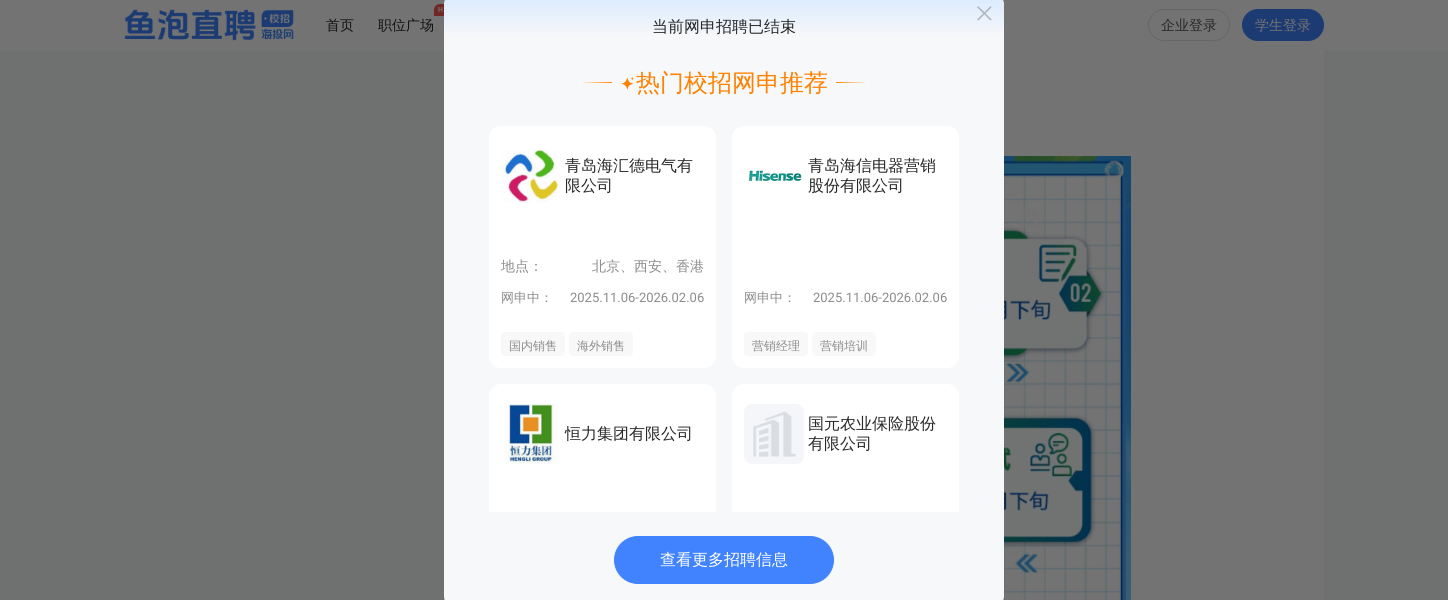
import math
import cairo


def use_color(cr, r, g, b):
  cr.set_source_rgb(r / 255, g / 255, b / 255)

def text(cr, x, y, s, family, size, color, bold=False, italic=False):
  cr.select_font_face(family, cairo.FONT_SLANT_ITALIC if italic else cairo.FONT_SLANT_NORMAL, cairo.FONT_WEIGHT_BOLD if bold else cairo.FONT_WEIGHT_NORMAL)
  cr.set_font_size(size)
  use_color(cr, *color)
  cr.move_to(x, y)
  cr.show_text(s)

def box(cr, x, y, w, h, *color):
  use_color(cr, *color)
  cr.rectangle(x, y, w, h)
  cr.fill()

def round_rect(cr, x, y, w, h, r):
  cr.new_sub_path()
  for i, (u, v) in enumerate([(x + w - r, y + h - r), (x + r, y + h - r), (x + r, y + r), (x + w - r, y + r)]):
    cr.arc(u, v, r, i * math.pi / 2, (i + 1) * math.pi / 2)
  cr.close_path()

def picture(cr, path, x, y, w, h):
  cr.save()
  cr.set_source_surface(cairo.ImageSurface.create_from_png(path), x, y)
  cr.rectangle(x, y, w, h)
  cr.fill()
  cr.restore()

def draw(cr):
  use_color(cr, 111, 112, 112)
  cr.paint()
  box(cr, 0, 0, 1448, 50, 115, 115, 115)
  picture(cr, "img_01.png", 124, 9, 170, 32)
  use_color(cr, 113, 39, 36)
  cr.new_path()
  cr.move_to(440, 4)
  cr.line_to(450, 4)
  cr.curve_to(453.5, 4, 456, 6.5, 456, 10)
  cr.curve_to(456, 13.5, 453.5, 16, 450, 16)
  cr.line_to(434, 16)
  cr.line_to(434, 10)
  cr.curve_to(434, 6.5, 436.5, 4, 440, 4)
  cr.close_path()
  cr.fill()
  round_rect(cr, 1148.5, 9.5, 81, 31, 15.5)
  use_color(cr, 103, 103, 103)
  cr.set_line_width(1)
  cr.stroke()
  use_color(cr, 29, 59, 115)
  round_rect(cr, 1242.5, 9.5, 81, 31, 15.5)
  cr.fill_preserve()
  cr.stroke()
  box(cr, 1004, 50, 320, 550, 115, 115, 115)
  picture(cr, "img_08.png", 1003, 156, 128, 444)
  use_color(cr, 247, 248, 249)
  round_rect(cr, 444, -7, 560, 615, 12)
  cr.fill()
  gradient = cairo.LinearGradient(724, -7, 724, 38)
  gradient.add_color_stop_rgba(0, 0.847, 0.914, 1, 1)
  gradient.add_color_stop_rgba(1, 0.847, 0.914, 1, 0)
  cr.set_source(gradient)
  round_rect(cr, 444, -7, 560, 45, 12)
  cr.fill()
  picture(cr, "img_02.png", 977, 6, 15, 15)
  gradient = cairo.LinearGradient(612, 83, 579, 83)
  gradient.add_color_stop_rgba(0, 1, 0.506, 0, 1)
  gradient.add_color_stop_rgba(1, 1, 1, 1, 1)
  cr.set_source(gradient)
  cr.rectangle(579, 82, 33, 1)
  cr.fill()
  picture(cr, "img_03.png", 621, 77, 13, 13)
  gradient = cairo.LinearGradient(836, 83, 869, 83)
  gradient.add_color_stop_rgba(0, 1, 0.506, 0, 1)
  gradient.add_color_stop_rgba(1, 1, 1, 1, 1)
  cr.set_source(gradient)
  cr.rectangle(836, 82, 33, 1)
  cr.fill()
  use_color(cr, 255, 255, 255)
  round_rect(cr, 489, 126, 227, 242, 12)
  cr.fill()
  picture(cr, "img_04.png", 501, 149, 60, 54)
  use_color(cr, 248, 248, 248)
  round_rect(cr, 501, 332, 64, 24, 4)
  cr.fill()
  round_rect(cr, 569, 332, 64, 24, 4)
  cr.fill()
  use_color(cr, 255, 255, 255)
  round_rect(cr, 732, 126, 227, 242, 12)
  cr.fill()
  picture(cr, "img_05.png", 747, 169, 55, 14)
  use_color(cr, 248, 248, 248)
  round_rect(cr, 744, 332, 64, 24, 4)
  cr.fill()
  round_rect(cr, 812, 332, 64, 24, 4)
  cr.fill()
  use_color(cr, 255, 255, 255)
  cr.new_path()
  cr.move_to(501, 384)
  cr.line_to(704, 384)
  cr.curve_to(710.5, 384, 716, 389.5, 716, 396)
  cr.line_to(716, 512)
  cr.line_to(489, 512)
  cr.line_to(489, 396)
  cr.curve_to(489, 389.5, 494.5, 384, 501, 384)
  cr.close_path()
  cr.fill()
  picture(cr, "img_06.png", 504, 404, 54, 60)
  cr.new_path()
  cr.move_to(744, 384)
  cr.line_to(947, 384)
  cr.curve_to(953.5, 384, 959, 389.5, 959, 396)
  cr.line_to(959, 512)
  cr.line_to(732, 512)
  cr.line_to(732, 396)
  cr.curve_to(732, 389.5, 737.5, 384, 744, 384)
  cr.close_path()
  cr.fill()
  picture(cr, "img_07.png", 744, 404, 60, 60)
  use_color(cr, 65, 131, 255)
  round_rect(cr, 614.5, 536.5, 219, 47, 23.5)
  cr.fill_preserve()
  cr.stroke()
  text(cr, 326, 30, "首页", "WenQuanYi Zen Hei Medium", 14, (17, 17, 17))
  text(cr, 438, 12, "H", "Roboto", 7, (115, 115, 115), bold=True)
  text(cr, 378, 30, "职位广场", "WenQuanYi Zen Hei Medium", 14, (17, 17, 17))
  text(cr, 1161, 30, "企业登录", "WenQuanYi Zen Hei Medium", 14, (40, 40, 40))
  text(cr, 1255, 30, "学生登录", "WenQuanYi Zen Hei Medium", 14, (115, 115, 115))
  text(cr, 652, 32, "当前网申招聘已结束", "WenQuanYi Zen Hei Medium", 16, (40, 40, 40))
  text(cr, 636, 91, "热门校招网申推荐", "WenQuanYi Zen Hei Medium", 24, (255, 129, 0))
  text(cr, 565, 171, "青岛海汇德电气有", "WenQuanYi Zen Hei Medium", 16, (40, 40, 40))
  text(cr, 565, 191, "限公司", "WenQuanYi Zen Hei Medium", 16, (40, 40, 40))
  text(cr, 501, 271, "地点：", "WenQuanYi Zen Hei Medium", 14, (140, 140, 140))
  text(cr, 592, 271, "北京、西安、香港", "WenQuanYi Zen Hei Medium", 14, (140, 140, 140))
  text(cr, 501, 302, "网申中：", "WenQuanYi Zen Hei Medium", 13, (140, 140, 140))
  text(cr, 570, 302, "2025.11.06-2026.02.06", "Roboto", 13, (140, 140, 140))
  text(cr, 509, 350, "国内销售", "WenQuanYi Zen Hei Medium", 12, (140, 140, 140))
  text(cr, 577, 350, "海外销售", "WenQuanYi Zen Hei Medium", 12, (140, 140, 140))
  text(cr, 808, 171, "青岛海信电器营销", "WenQuanYi Zen Hei Medium", 16, (40, 40, 40))
  text(cr, 808, 191, "股份有限公司", "WenQuanYi Zen Hei Medium", 16, (40, 40, 40))
  text(cr, 744, 302, "网申中：", "WenQuanYi Zen Hei Medium", 13, (140, 140, 140))
  text(cr, 813, 302, "2025.11.06-2026.02.06", "Roboto", 13, (140, 140, 140))
  text(cr, 752, 350, "营销经理", "WenQuanYi Zen Hei Medium", 12, (140, 140, 140))
  text(cr, 820, 350, "营销培训", "WenQuanYi Zen Hei Medium", 12, (140, 140, 140))
  text(cr, 565, 439, "恒力集团有限公司", "WenQuanYi Zen Hei Medium", 16, (40, 40, 40))
  text(cr, 808, 429, "国元农业保险股份", "WenQuanYi Zen Hei Medium", 16, (40, 40, 40))
  text(cr, 808, 449, "有限公司", "WenQuanYi Zen Hei Medium", 16, (40, 40, 40))
  text(cr, 660, 565, "查看更多招聘信息", "WenQuanYi Zen Hei Medium", 16, (255, 255, 255))


surface = cairo.ImageSurface(cairo.FORMAT_RGB24, 1448, 600)
cr = cairo.Context(surface)
options = cairo.FontOptions()
options.set_hint_metrics(cairo.HINT_METRICS_OFF)
options.set_hint_style(cairo.HINT_STYLE_NONE)
cr.set_font_options(options)
cr.set_miter_limit(4)
draw(cr)
surface.write_to_png("out.png")
